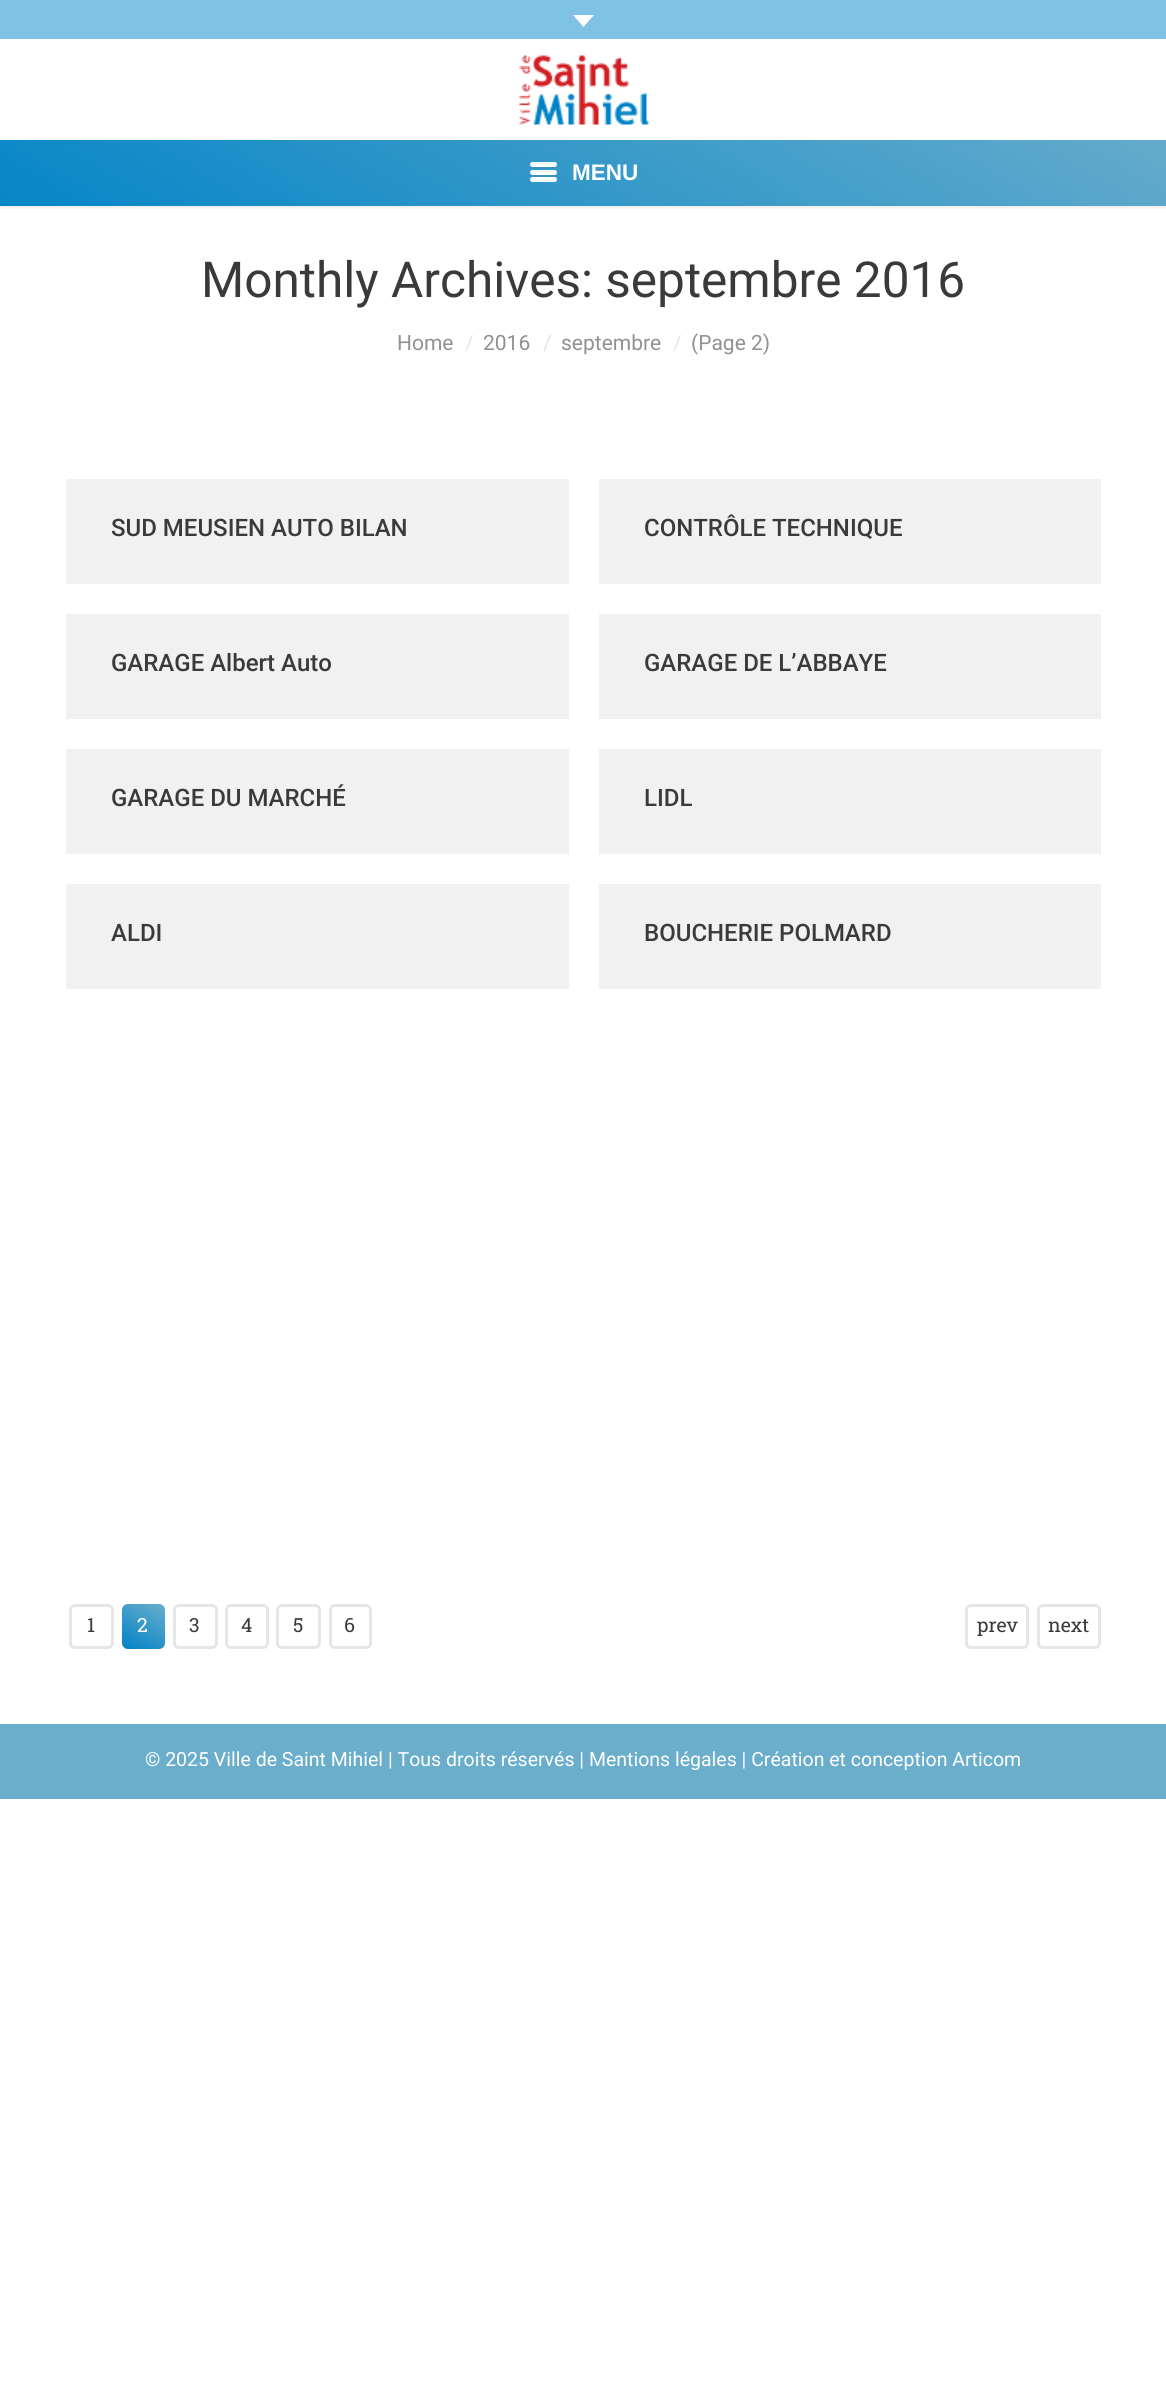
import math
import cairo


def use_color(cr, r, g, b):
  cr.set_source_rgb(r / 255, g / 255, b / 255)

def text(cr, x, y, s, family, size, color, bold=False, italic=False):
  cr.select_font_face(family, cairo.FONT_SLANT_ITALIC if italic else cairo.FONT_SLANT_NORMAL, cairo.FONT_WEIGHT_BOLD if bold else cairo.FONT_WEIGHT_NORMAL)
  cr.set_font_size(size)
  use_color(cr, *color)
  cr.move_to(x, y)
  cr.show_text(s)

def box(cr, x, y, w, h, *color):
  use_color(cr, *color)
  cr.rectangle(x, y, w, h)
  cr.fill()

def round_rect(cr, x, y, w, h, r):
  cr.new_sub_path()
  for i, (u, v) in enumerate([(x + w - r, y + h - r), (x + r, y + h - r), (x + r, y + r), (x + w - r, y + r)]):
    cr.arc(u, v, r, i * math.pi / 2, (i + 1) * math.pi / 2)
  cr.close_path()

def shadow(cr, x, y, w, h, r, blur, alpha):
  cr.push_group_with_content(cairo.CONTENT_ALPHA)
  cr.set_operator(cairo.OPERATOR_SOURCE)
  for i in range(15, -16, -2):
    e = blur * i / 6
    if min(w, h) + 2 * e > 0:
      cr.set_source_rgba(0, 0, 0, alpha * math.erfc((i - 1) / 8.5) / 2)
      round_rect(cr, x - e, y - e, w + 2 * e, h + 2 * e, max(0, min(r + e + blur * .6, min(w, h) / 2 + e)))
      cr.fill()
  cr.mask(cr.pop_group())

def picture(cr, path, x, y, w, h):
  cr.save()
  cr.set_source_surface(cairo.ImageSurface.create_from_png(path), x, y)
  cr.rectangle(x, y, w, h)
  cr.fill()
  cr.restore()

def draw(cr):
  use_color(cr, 255, 255, 255)
  cr.paint()
  cr.save()
  cr.rectangle(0, 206, 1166, 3)
  cr.clip()
  use_color(cr, 0, 0, 0)
  shadow(cr, 0, -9, 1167, 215, 0, 3, 0.15)
  cr.restore()
  box(cr, 0, 0, 1166, 39, 128, 194, 227)
  use_color(cr, 255, 255, 255)
  cr.new_path()
  cr.move_to(573, 15)
  cr.line_to(594, 15)
  cr.line_to(583.5, 27)
  cr.close_path()
  cr.fill()
  picture(cr, "img_01.png", 519, 55, 131, 70)
  gradient = cairo.LinearGradient(401, 489, 766, -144)
  gradient.add_color_stop_rgba(0, 0, 0.514, 0.776, 1)
  gradient.add_color_stop_rgba(1, 0.416, 0.682, 0.8, 1)
  cr.set_source(gradient)
  cr.rectangle(0, 140, 1166, 66)
  cr.fill()
  use_color(cr, 255, 255, 255)
  round_rect(cr, 530, 170, 27, 5, 2.5)
  cr.fill()
  round_rect(cr, 530, 162, 27, 5, 2.5)
  cr.fill()
  round_rect(cr, 530, 177, 27, 5, 2.5)
  cr.fill()
  box(cr, 66, 479, 503, 105, 241, 241, 241)
  box(cr, 599, 479, 502, 105, 241, 241, 241)
  box(cr, 66, 614, 503, 105, 241, 241, 241)
  box(cr, 599, 614, 502, 105, 241, 241, 241)
  box(cr, 66, 749, 503, 105, 241, 241, 241)
  box(cr, 599, 749, 502, 105, 241, 241, 241)
  box(cr, 66, 884, 503, 105, 241, 241, 241)
  box(cr, 599, 884, 502, 105, 241, 241, 241)
  round_rect(cr, 70.5, 1605.5, 42, 42, 4.5)
  use_color(cr, 230, 230, 230)
  cr.set_line_width(3)
  cr.stroke()
  gradient = cairo.LinearGradient(128, 1652, 158, 1600)
  gradient.add_color_stop_rgba(0, 0, 0.514, 0.776, 1)
  gradient.add_color_stop_rgba(1, 0.416, 0.682, 0.8, 1)
  cr.set_source(gradient)
  round_rect(cr, 122, 1604, 43, 45, 6)
  cr.fill()
  round_rect(cr, 174.5, 1605.5, 42, 42, 4.5)
  use_color(cr, 230, 230, 230)
  cr.stroke()
  round_rect(cr, 226.5, 1605.5, 41, 42, 4.5)
  cr.stroke()
  round_rect(cr, 277.5, 1605.5, 42, 42, 4.5)
  cr.stroke()
  round_rect(cr, 330.5, 1605.5, 40, 42, 4.5)
  cr.stroke()
  round_rect(cr, 966.5, 1605.5, 61, 42, 4.5)
  cr.stroke()
  round_rect(cr, 1038.5, 1605.5, 61, 42, 4.5)
  cr.stroke()
  box(cr, 0, 1724, 1166, 75, 106, 174, 204)
  text(cr, 572, 180, "MENU", "Liberation Sans", 22.5, (255, 255, 255), bold=True)
  text(cr, 201, 297, "Monthly Archives: septembre 2016", "Roboto", 49.5, (58, 58, 58))
  text(cr, 397, 350, "Home", "Roboto", 21, (145, 145, 145))
  text(cr, 465, 350, "/", "Roboto", 21, (228, 228, 228))
  text(cr, 483, 350, "2016", "Roboto", 21, (145, 145, 145))
  text(cr, 543, 350, "/", "Roboto", 21, (228, 228, 228))
  text(cr, 561, 350, "septembre", "Roboto", 21, (145, 145, 145))
  text(cr, 673, 350, "/", "Roboto", 21, (228, 228, 228))
  text(cr, 691, 350, "(Page 2)", "Roboto", 21, (145, 145, 145))
  text(cr, 111, 536, "SUD MEUSIEN AUTO BILAN", "Roboto Medium", 24, (58, 58, 58))
  text(cr, 644, 536, "CONTRÔLE TECHNIQUE", "Roboto Medium", 24, (58, 58, 58))
  text(cr, 111, 671, "GARAGE Albert Auto", "Roboto Medium", 24, (58, 58, 58))
  text(cr, 644, 671, "GARAGE DE L’ABBAYE", "Roboto Medium", 24, (58, 58, 58))
  text(cr, 111, 806, "GARAGE DU MARCHÉ", "Roboto Medium", 24, (58, 58, 58))
  text(cr, 644, 806, "LIDL", "Roboto Medium", 24, (58, 58, 58))
  text(cr, 111, 941, "ALDI", "Roboto Medium", 24, (58, 58, 58))
  text(cr, 644, 941, "BOUCHERIE POLMARD", "Roboto Medium", 24, (58, 58, 58))
  text(cr, 87, 1632, "1", "Roboto Slab", 19.5, (58, 58, 58))
  text(cr, 137, 1632, "2", "Roboto Slab", 19.5, (255, 255, 255))
  text(cr, 189, 1632, "3", "Roboto Slab", 19.5, (58, 58, 58))
  text(cr, 241, 1632, "4", "Roboto Slab", 19.5, (58, 58, 58))
  text(cr, 293, 1632, "5", "Roboto Slab", 19.5, (58, 58, 58))
  text(cr, 344, 1632, "6", "Roboto Slab", 19.5, (58, 58, 58))
  text(cr, 977, 1632, "prev", "Roboto Slab", 19.5, (58, 58, 58))
  text(cr, 1048, 1632, "next", "Roboto Slab", 19.5, (58, 58, 58))
  text(cr, 145, 1766, "© 2025 Ville de Saint Mihiel | Tous droits réservés | Mentions légales | Création et conception Articom", "Roboto", 19.5, (255, 255, 255))


surface = cairo.ImageSurface(cairo.FORMAT_RGB24, 1166, 2401)
cr = cairo.Context(surface)
options = cairo.FontOptions()
options.set_hint_metrics(cairo.HINT_METRICS_OFF)
options.set_hint_style(cairo.HINT_STYLE_NONE)
cr.set_font_options(options)
cr.set_miter_limit(4)
draw(cr)
surface.write_to_png("out.png")
